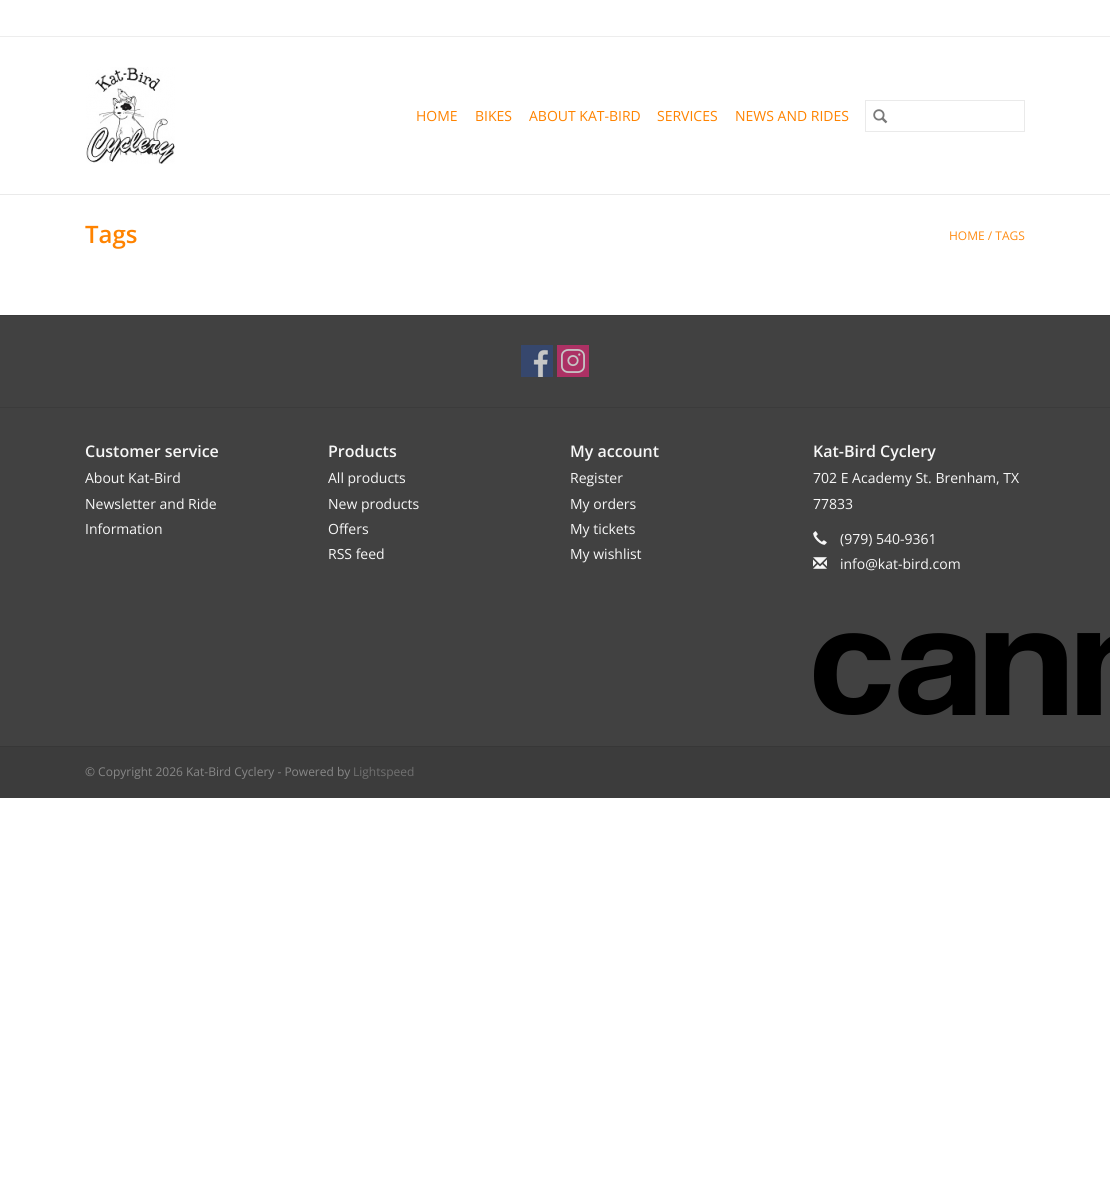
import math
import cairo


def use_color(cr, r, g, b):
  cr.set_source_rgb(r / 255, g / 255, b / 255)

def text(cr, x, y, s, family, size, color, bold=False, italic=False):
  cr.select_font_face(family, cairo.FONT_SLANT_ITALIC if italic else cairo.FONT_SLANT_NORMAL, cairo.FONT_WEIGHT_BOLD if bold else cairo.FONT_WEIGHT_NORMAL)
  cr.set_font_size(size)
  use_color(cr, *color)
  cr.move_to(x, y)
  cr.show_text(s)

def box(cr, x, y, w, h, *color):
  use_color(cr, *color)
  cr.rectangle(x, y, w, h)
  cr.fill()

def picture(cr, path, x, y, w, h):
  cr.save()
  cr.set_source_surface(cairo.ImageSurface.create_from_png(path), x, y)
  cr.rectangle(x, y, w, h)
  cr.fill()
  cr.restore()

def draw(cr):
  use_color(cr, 255, 255, 255)
  cr.paint()
  box(cr, 0, 194, 1110, 1, 234, 234, 234)
  box(cr, 0, 36, 1110, 1, 237, 237, 237)
  picture(cr, "img_01.png", 86, 67, 89, 97)
  cr.rectangle(865.5, 100.5, 159, 31)
  use_color(cr, 234, 234, 234)
  cr.set_line_width(1)
  cr.stroke()
  picture(cr, "img_02.png", 873, 109, 15, 15)
  box(cr, 0, 316, 1110, 430, 65, 65, 65)
  box(cr, 0, 315, 1110, 1, 59, 59, 59)
  picture(cr, "img_03.png", 521, 345, 32, 32)
  picture(cr, "img_04.png", 557, 345, 32, 32)
  box(cr, 0, 407, 1110, 1, 59, 59, 59)
  picture(cr, "img_05.png", 813, 531, 14, 14)
  picture(cr, "img_06.png", 813, 557, 14, 12)
  picture(cr, "img_07.png", 814, 633, 296, 82)
  box(cr, 0, 746, 1110, 1, 55, 55, 55)
  box(cr, 0, 747, 1110, 51, 60, 60, 60)
  text(cr, 416, 121, "HOME", "Open Sans", 14, (255, 131, 0))
  text(cr, 475, 121, "BIKES", "Open Sans", 14, (255, 131, 0))
  text(cr, 529, 121, "ABOUT KAT-BIRD", "Open Sans", 14, (255, 131, 0))
  text(cr, 657, 121, "SERVICES", "Open Sans", 14, (255, 131, 0))
  text(cr, 735, 121, "NEWS AND RIDES", "Open Sans", 14, (255, 131, 0))
  text(cr, 85, 243, "Tags", "Open Sans SemiBold", 24, (255, 131, 0))
  text(cr, 949, 240, "HOME / TAGS", "Open Sans", 12, (255, 140, 20))
  text(cr, 85, 457, "Customer service", "Open Sans SemiBold", 16, (247, 247, 247))
  text(cr, 85, 483, "About Kat-Bird", "Open Sans", 14, (247, 247, 247))
  text(cr, 85, 509, "Newsletter and Ride", "Open Sans", 14, (247, 247, 247))
  text(cr, 85, 534, "Information", "Open Sans", 14, (247, 247, 247))
  text(cr, 328, 457, "Products", "Open Sans SemiBold", 16, (247, 247, 247))
  text(cr, 328, 483, "All products", "Open Sans", 14, (247, 247, 247))
  text(cr, 328, 509, "New products", "Open Sans", 14, (247, 247, 247))
  text(cr, 328, 534, "Offers", "Open Sans", 14, (247, 247, 247))
  text(cr, 328, 559, "RSS feed", "Open Sans", 14, (247, 247, 247))
  text(cr, 570, 457, "My account", "Open Sans SemiBold", 16, (247, 247, 247))
  text(cr, 570, 483, "Register", "Open Sans", 14, (247, 247, 247))
  text(cr, 570, 509, "My orders", "Open Sans", 14, (247, 247, 247))
  text(cr, 570, 534, "My tickets", "Open Sans", 14, (247, 247, 247))
  text(cr, 570, 559, "My wishlist", "Open Sans", 14, (247, 247, 247))
  text(cr, 813, 457, "Kat-Bird Cyclery", "Open Sans SemiBold", 16, (247, 247, 247))
  text(cr, 813, 483, "702 E Academy St. Brenham, TX", "Open Sans", 14, (247, 247, 247))
  text(cr, 813, 509, "77833", "Open Sans", 14, (247, 247, 247))
  text(cr, 840, 544, "(979) 540-9361", "Open Sans", 14, (247, 247, 247))
  text(cr, 840, 569, "info@kat-bird.com", "Open Sans", 14, (247, 247, 247))
  text(cr, 85, 776, "© Copyright 2026 Kat-Bird Cyclery - Powered by", "Open Sans", 12, (135, 135, 135))
  text(cr, 353, 776, "Lightspeed", "Open Sans", 12, (112, 112, 112))


surface = cairo.ImageSurface(cairo.FORMAT_RGB24, 1110, 1200)
cr = cairo.Context(surface)
options = cairo.FontOptions()
options.set_hint_metrics(cairo.HINT_METRICS_OFF)
options.set_hint_style(cairo.HINT_STYLE_NONE)
cr.set_font_options(options)
cr.set_miter_limit(4)
draw(cr)
surface.write_to_png("out.png")
